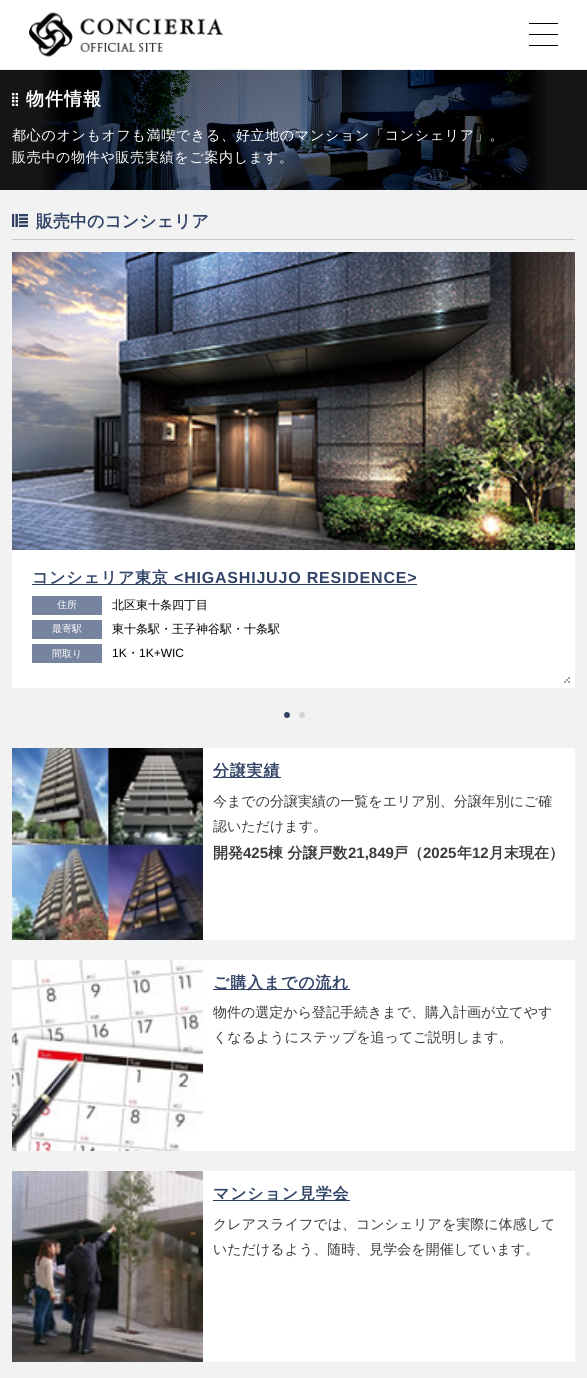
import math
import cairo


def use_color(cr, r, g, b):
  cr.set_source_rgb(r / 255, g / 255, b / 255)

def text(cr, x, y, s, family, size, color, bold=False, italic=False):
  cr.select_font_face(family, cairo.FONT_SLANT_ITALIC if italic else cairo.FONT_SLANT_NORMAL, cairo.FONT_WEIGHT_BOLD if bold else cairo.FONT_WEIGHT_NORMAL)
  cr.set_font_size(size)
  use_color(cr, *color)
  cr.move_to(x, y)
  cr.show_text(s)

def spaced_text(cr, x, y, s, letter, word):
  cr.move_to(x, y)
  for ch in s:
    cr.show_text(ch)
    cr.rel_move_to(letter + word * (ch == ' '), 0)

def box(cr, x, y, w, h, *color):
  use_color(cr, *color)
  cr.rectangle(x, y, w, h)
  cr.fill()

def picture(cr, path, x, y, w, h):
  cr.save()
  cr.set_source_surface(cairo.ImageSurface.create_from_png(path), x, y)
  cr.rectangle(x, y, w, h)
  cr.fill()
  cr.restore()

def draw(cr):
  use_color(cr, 242, 242, 242)
  cr.paint()
  box(cr, 0, 0, 587, 69, 255, 255, 255)
  box(cr, 0, 69, 587, 1, 237, 238, 240)
  picture(cr, "img_01.png", 29, 12, 195, 45)
  box(cr, 529, 23, 29, 1, 0, 0, 0)
  box(cr, 529, 34, 29, 1, 0, 0, 0)
  box(cr, 529, 45, 29, 1, 0, 0, 0)
  box(cr, 0, 70, 587, 120, 22, 21, 22)
  picture(cr, "img_02.png", 42, 70, 504, 120)
  picture(cr, "img_03.png", 12, 93, 6, 13)
  picture(cr, "img_04.png", 12, 214, 16, 13)
  box(cr, 12, 239, 563, 1, 201, 201, 201)
  box(cr, 12, 550, 563, 138, 255, 255, 255)
  picture(cr, "img_05.png", 12, 252, 563, 298)
  box(cr, 32, 584, 385, 1, 47, 64, 98)
  box(cr, 32, 596, 70, 19, 118, 132, 159)
  box(cr, 32, 620, 70, 19, 118, 132, 159)
  box(cr, 32, 644, 70, 19, 118, 132, 159)
  picture(cr, "img_06.png", 564, 677, 6, 6)
  use_color(cr, 49, 67, 102)
  cr.arc(287, 715, 3, 0, 2 * math.pi)
  cr.fill()
  use_color(cr, 210, 210, 210)
  cr.arc(302, 715, 3, 0, 2 * math.pi)
  cr.fill()
  picture(cr, "img_07.png", 12, 748, 191, 192)
  box(cr, 203, 748, 372, 192, 255, 255, 255)
  box(cr, 213, 777, 68, 1, 47, 64, 98)
  picture(cr, "img_08.png", 12, 960, 191, 191)
  box(cr, 203, 960, 372, 191, 255, 255, 255)
  box(cr, 213, 989, 137, 1, 47, 64, 98)
  picture(cr, "img_09.png", 12, 1171, 191, 191)
  box(cr, 203, 1171, 372, 191, 255, 255, 255)
  box(cr, 213, 1200, 137, 1, 47, 64, 98)
  cr.select_font_face("WenQuanYi Zen Hei", cairo.FONT_SLANT_NORMAL, cairo.FONT_WEIGHT_BOLD)
  cr.set_font_size(18)
  use_color(cr, 255, 255, 255)
  spaced_text(cr, 26, 105, "物件情報", 1, 0)
  cr.select_font_face("WenQuanYi Zen Hei Medium")
  cr.set_font_size(14)
  spaced_text(cr, 12, 140, "都心のオンもオフも満喫できる、好立地のマンション「コンシェリア」。", 0.7, 0)
  spaced_text(cr, 12, 162, "販売中の物件や販売実績をご案内します。", 0.7, 0)
  text(cr, 36, 227, "販売中のコンシェリア", "WenQuanYi Zen Hei", 17, (49, 67, 102), bold=True)
  cr.set_font_size(16)
  spaced_text(cr, 32, 583, "コンシェリア東京", 0.8, 0)
  cr.select_font_face("Liberation Sans", cairo.FONT_SLANT_NORMAL, cairo.FONT_WEIGHT_BOLD)
  spaced_text(cr, 174, 583, "<HIGASHIJUJO RESIDENCE>", 0.8, 0)
  text(cr, 57, 608, "住所", "WenQuanYi Zen Hei Medium", 10, (255, 255, 255))
  text(cr, 112, 609, "北区東十条四丁目", "WenQuanYi Zen Hei Medium", 12, (0, 0, 0))
  text(cr, 52, 632, "最寄駅", "WenQuanYi Zen Hei Medium", 10, (255, 255, 255))
  text(cr, 112, 633, "東十条駅・王子神谷駅・十条駅", "WenQuanYi Zen Hei Medium", 12, (0, 0, 0))
  text(cr, 52, 657, "間取り", "WenQuanYi Zen Hei Medium", 10, (255, 255, 255))
  text(cr, 112, 657, "1K", "Liberation Sans", 12, (0, 0, 0))
  text(cr, 127, 657, "・", "WenQuanYi Zen Hei Medium", 12, (0, 0, 0))
  text(cr, 139, 657, "1K+WIC", "Liberation Sans", 12, (0, 0, 0))
  cr.select_font_face("WenQuanYi Zen Hei", cairo.FONT_SLANT_NORMAL, cairo.FONT_WEIGHT_BOLD)
  cr.set_font_size(16)
  use_color(cr, 49, 67, 102)
  spaced_text(cr, 213, 776, "分譲実績", 0.8, 0)
  text(cr, 213, 806, "今までの分譲実績の一覧をエリア別、分譲年別にご確", "WenQuanYi Zen Hei Medium", 14, (58, 58, 58))
  text(cr, 213, 831, "認いただけます。", "WenQuanYi Zen Hei Medium", 14, (58, 58, 58))
  text(cr, 213, 858, "開発", "WenQuanYi Zen Hei", 15, (58, 58, 58), bold=True)
  text(cr, 243, 858, "425", "Liberation Sans", 15, (58, 58, 58), bold=True)
  text(cr, 268, 858, "棟 分譲戸数", "WenQuanYi Zen Hei", 15, (58, 58, 58), bold=True)
  text(cr, 348, 858, "21,849", "Liberation Sans", 15, (58, 58, 58), bold=True)
  text(cr, 393, 858, "戸（", "WenQuanYi Zen Hei", 15, (58, 58, 58), bold=True)
  text(cr, 423, 858, "2025", "Liberation Sans", 15, (58, 58, 58), bold=True)
  text(cr, 457, 858, "年", "WenQuanYi Zen Hei", 15, (58, 58, 58), bold=True)
  text(cr, 472, 858, "12", "Liberation Sans", 15, (58, 58, 58), bold=True)
  text(cr, 489, 858, "月末現在）", "WenQuanYi Zen Hei", 15, (58, 58, 58), bold=True)
  cr.set_font_size(16)
  use_color(cr, 49, 67, 102)
  spaced_text(cr, 213, 988, "ご購入までの流れ", 0.8, 0)
  text(cr, 213, 1017, "物件の選定から登記手続きまで、購入計画が立てやす", "WenQuanYi Zen Hei Medium", 14, (58, 58, 58))
  text(cr, 213, 1042, "くなるようにステップを追ってご説明します。", "WenQuanYi Zen Hei Medium", 14, (58, 58, 58))
  cr.select_font_face("WenQuanYi Zen Hei", cairo.FONT_SLANT_NORMAL, cairo.FONT_WEIGHT_BOLD)
  cr.set_font_size(16)
  use_color(cr, 49, 67, 102)
  spaced_text(cr, 213, 1199, "マンション見学会", 0.8, 0)
  text(cr, 213, 1229, "クレアスライフでは、コンシェリアを実際に体感して", "WenQuanYi Zen Hei Medium", 14, (58, 58, 58))
  text(cr, 213, 1254, "いただけるよう、随時、見学会を開催しています。", "WenQuanYi Zen Hei Medium", 14, (58, 58, 58))


surface = cairo.ImageSurface(cairo.FORMAT_RGB24, 587, 1378)
cr = cairo.Context(surface)
options = cairo.FontOptions()
options.set_hint_metrics(cairo.HINT_METRICS_OFF)
options.set_hint_style(cairo.HINT_STYLE_NONE)
cr.set_font_options(options)
cr.set_miter_limit(4)
draw(cr)
surface.write_to_png("out.png")
